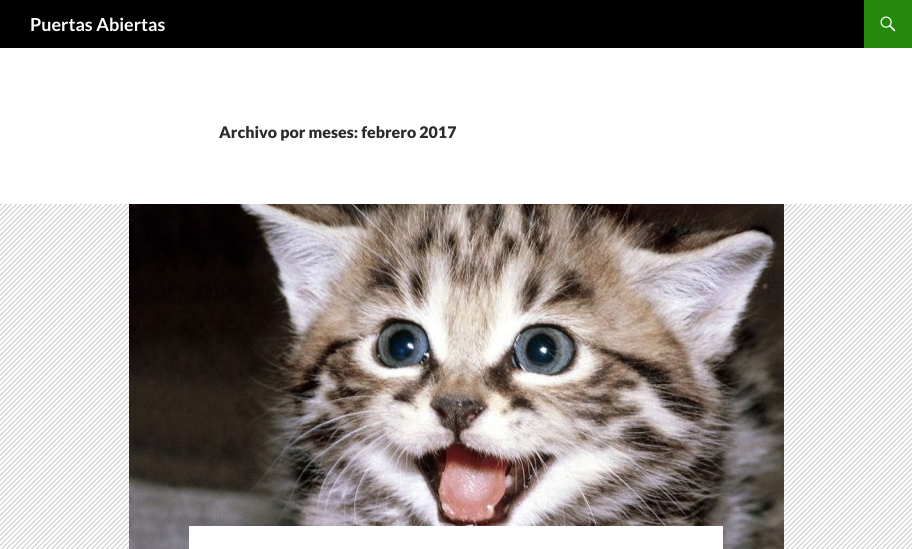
import math
import cairo


def use_color(cr, r, g, b):
  cr.set_source_rgb(r / 255, g / 255, b / 255)

def text(cr, x, y, s, family, size, color, bold=False, italic=False):
  cr.select_font_face(family, cairo.FONT_SLANT_ITALIC if italic else cairo.FONT_SLANT_NORMAL, cairo.FONT_WEIGHT_BOLD if bold else cairo.FONT_WEIGHT_NORMAL)
  cr.set_font_size(size)
  use_color(cr, *color)
  cr.move_to(x, y)
  cr.show_text(s)

def box(cr, x, y, w, h, *color):
  use_color(cr, *color)
  cr.rectangle(x, y, w, h)
  cr.fill()

def picture(cr, path, x, y, w, h):
  cr.save()
  cr.set_source_surface(cairo.ImageSurface.create_from_png(path), x, y)
  cr.rectangle(x, y, w, h)
  cr.fill()
  cr.restore()

def draw(cr):
  use_color(cr, 255, 255, 255)
  cr.paint()
  box(cr, 0, 0, 864, 48, 0, 0, 0)
  box(cr, 864, 0, 48, 48, 36, 137, 13)
  picture(cr, "img_01.png", 880, 16, 16, 16)
  box(cr, 0, 204, 912, 345, 178, 178, 178)
  picture(cr, "img_02.png", 0, 204, 912, 345)
  picture(cr, "img_03.png", 129, 204, 655, 345)
  box(cr, 189, 526, 534, 23, 255, 255, 255)
  text(cr, 30, 31, "Puertas Abiertas", "Lato", 18, (255, 255, 255), bold=True)
  text(cr, 219, 138, "Archivo por meses: febrero 2017", "Lato Black", 16, (43, 43, 43))


surface = cairo.ImageSurface(cairo.FORMAT_RGB24, 912, 549)
cr = cairo.Context(surface)
options = cairo.FontOptions()
options.set_hint_metrics(cairo.HINT_METRICS_OFF)
options.set_hint_style(cairo.HINT_STYLE_NONE)
cr.set_font_options(options)
cr.set_miter_limit(4)
draw(cr)
surface.write_to_png("out.png")
